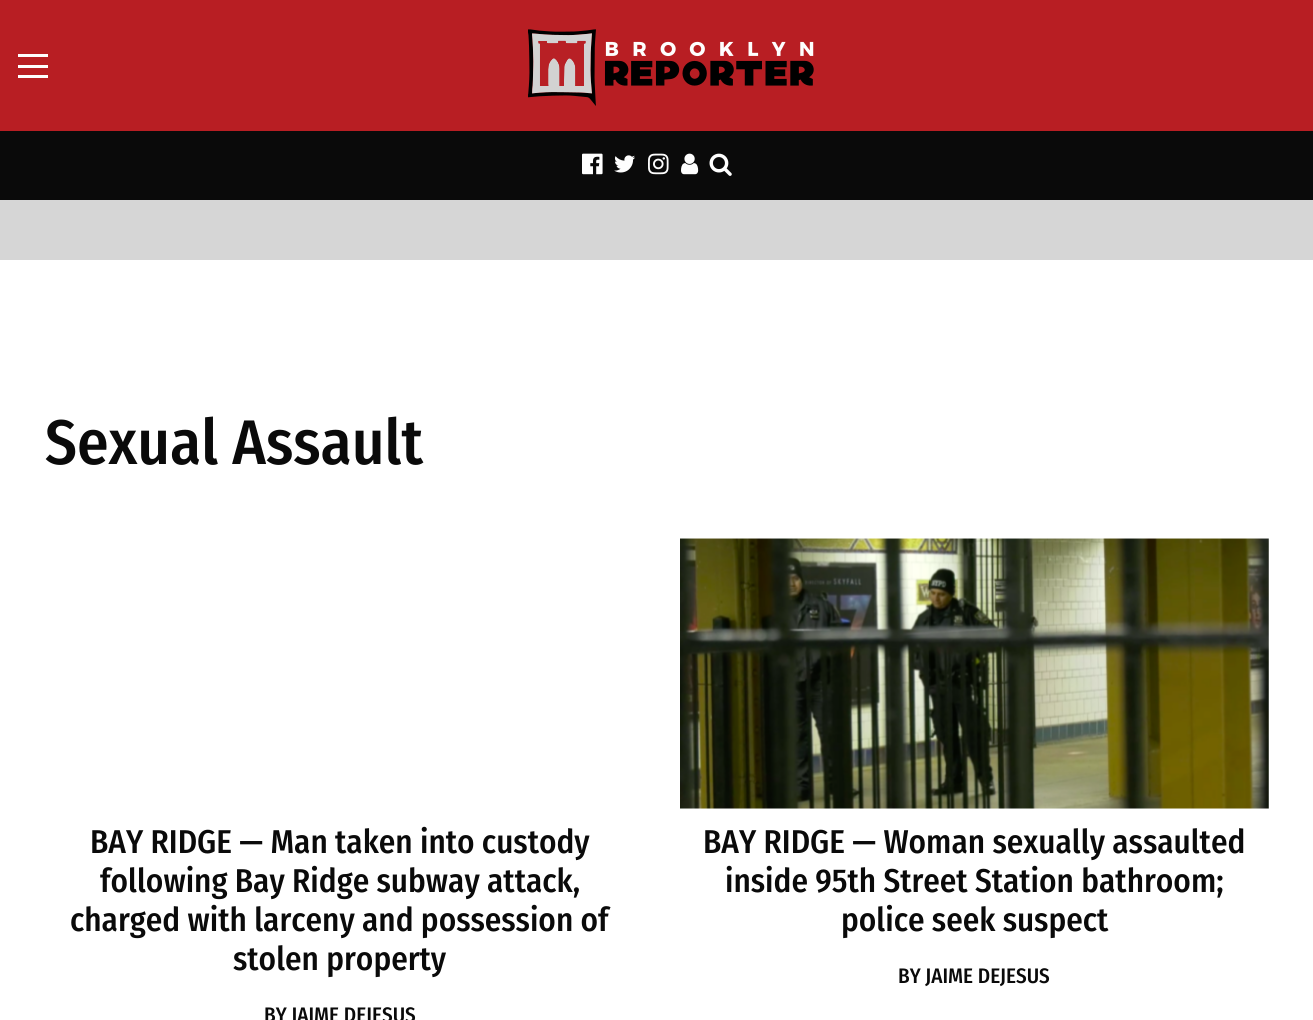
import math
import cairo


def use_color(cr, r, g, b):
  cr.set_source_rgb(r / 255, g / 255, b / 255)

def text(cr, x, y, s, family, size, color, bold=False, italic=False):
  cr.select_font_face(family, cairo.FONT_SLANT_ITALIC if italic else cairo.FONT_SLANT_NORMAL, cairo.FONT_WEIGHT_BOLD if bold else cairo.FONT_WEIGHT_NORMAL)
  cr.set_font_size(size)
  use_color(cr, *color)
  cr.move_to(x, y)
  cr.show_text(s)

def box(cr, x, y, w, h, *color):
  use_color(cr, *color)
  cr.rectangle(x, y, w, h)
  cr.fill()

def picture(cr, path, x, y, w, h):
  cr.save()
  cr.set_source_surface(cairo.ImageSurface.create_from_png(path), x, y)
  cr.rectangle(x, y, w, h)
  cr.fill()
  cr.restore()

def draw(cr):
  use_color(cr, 255, 255, 255)
  cr.paint()
  box(cr, 0, 0, 1313, 131, 184, 30, 35)
  box(cr, 18, 75, 30, 3, 254, 254, 254)
  box(cr, 18, 65, 30, 3, 254, 254, 254)
  box(cr, 18, 54, 30, 3, 254, 254, 254)
  picture(cr, "img_01.png", 528, 29, 286, 77)
  box(cr, 0, 131, 1313, 69, 10, 10, 10)
  picture(cr, "img_02.png", 582, 153, 21, 22)
  picture(cr, "img_03.png", 614, 155, 21, 18)
  picture(cr, "img_04.png", 648, 153, 21, 22)
  picture(cr, "img_05.png", 681, 153, 18, 22)
  picture(cr, "img_06.png", 709, 153, 23, 23)
  box(cr, 0, 200, 1313, 60, 214, 214, 214)
  picture(cr, "img_07.png", 680, 538, 589, 271)
  text(cr, 45, 464, "Sexual Assault", "Fira Sans Condensed Medium", 63, (10, 10, 10))
  text(cr, 90, 853, "BAY RIDGE — Man taken into custody", "Fira Sans Condensed Medium", 33, (10, 10, 10))
  text(cr, 100, 892, "following Bay Ridge subway attack,", "Fira Sans Condensed Medium", 33, (10, 10, 10))
  text(cr, 70, 931, "charged with larceny and possession of", "Fira Sans Condensed Medium", 33, (10, 10, 10))
  text(cr, 233, 970, "stolen property", "Fira Sans Condensed Medium", 33, (10, 10, 10))
  text(cr, 264, 1022, "BY JAIME DEJESUS", "Fira Sans Condensed Medium", 21, (10, 10, 10))
  text(cr, 703, 853, "BAY RIDGE — Woman sexually assaulted", "Fira Sans Condensed Medium", 33, (10, 10, 10))
  text(cr, 725, 892, "inside 95th Street Station bathroom;", "Fira Sans Condensed Medium", 33, (10, 10, 10))
  text(cr, 841, 931, "police seek suspect", "Fira Sans Condensed Medium", 33, (10, 10, 10))
  text(cr, 898, 983, "BY JAIME DEJESUS", "Fira Sans Condensed Medium", 21, (10, 10, 10))


surface = cairo.ImageSurface(cairo.FORMAT_RGB24, 1313, 1020)
cr = cairo.Context(surface)
options = cairo.FontOptions()
options.set_hint_metrics(cairo.HINT_METRICS_OFF)
options.set_hint_style(cairo.HINT_STYLE_NONE)
cr.set_font_options(options)
cr.set_miter_limit(4)
draw(cr)
surface.write_to_png("out.png")
